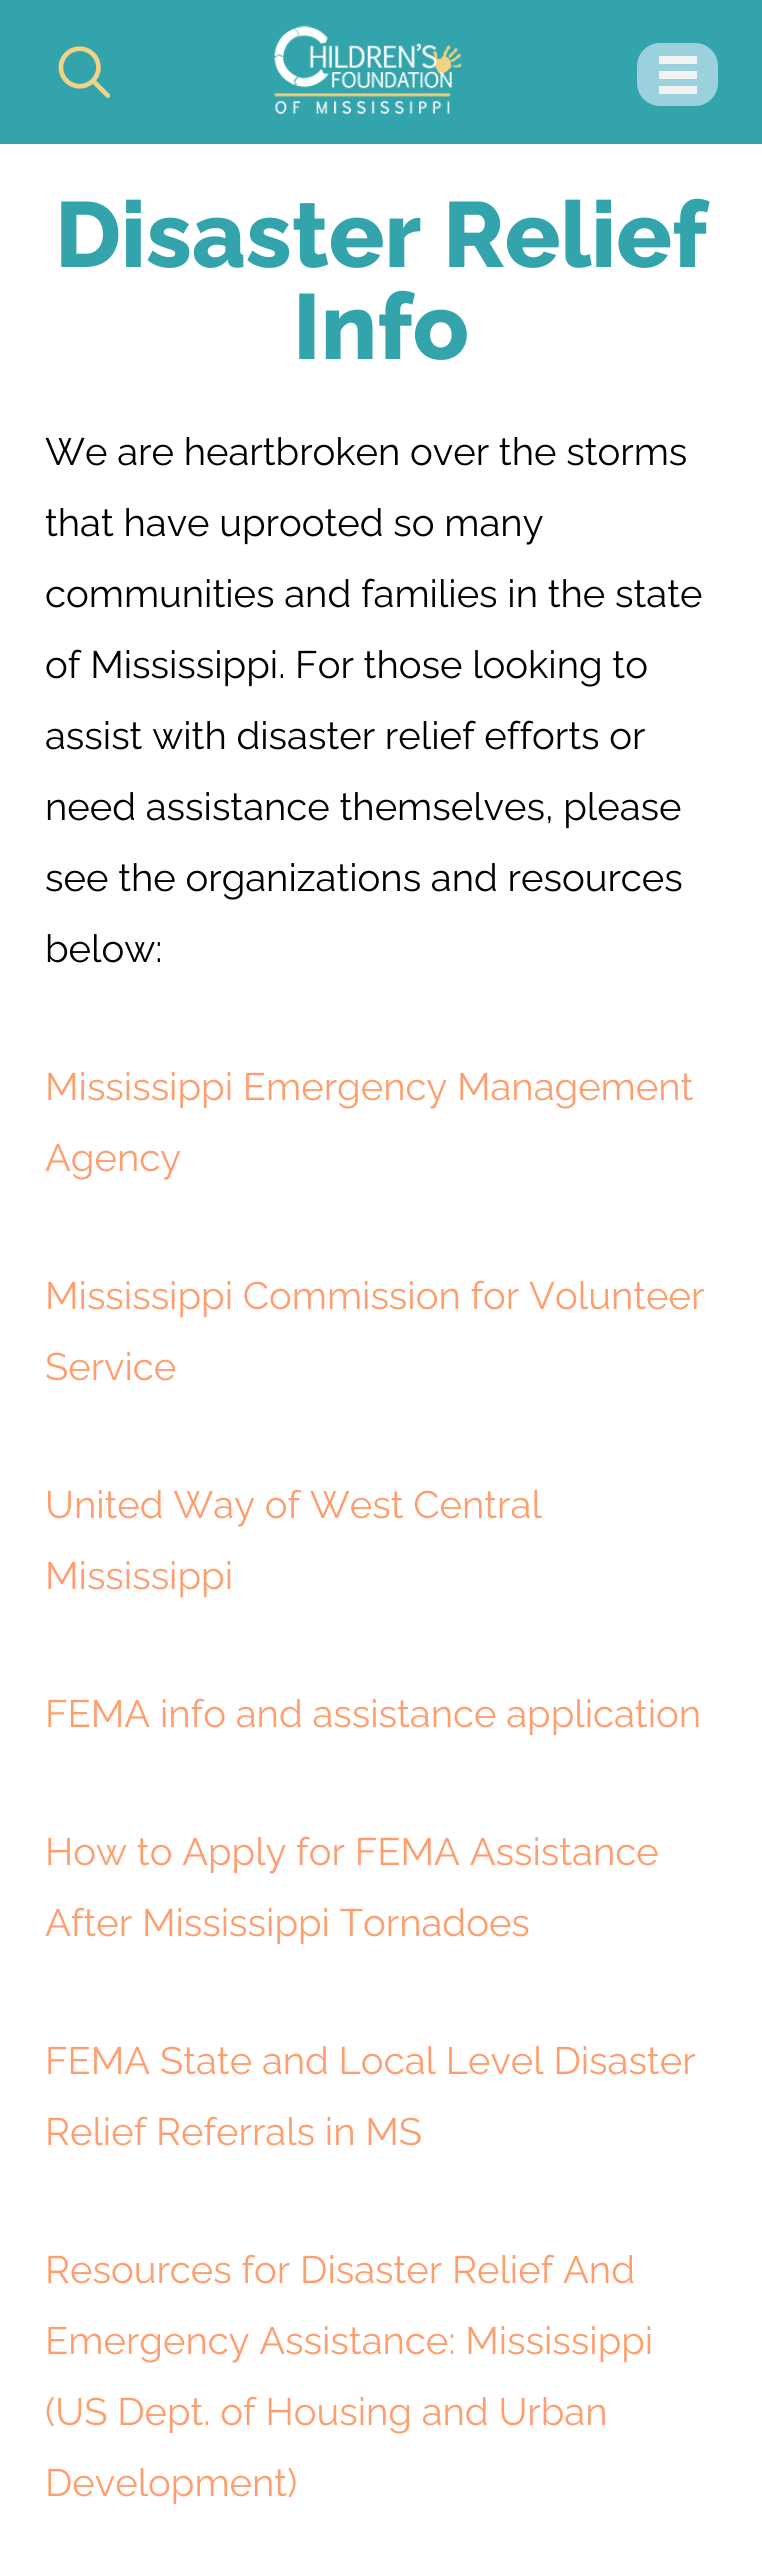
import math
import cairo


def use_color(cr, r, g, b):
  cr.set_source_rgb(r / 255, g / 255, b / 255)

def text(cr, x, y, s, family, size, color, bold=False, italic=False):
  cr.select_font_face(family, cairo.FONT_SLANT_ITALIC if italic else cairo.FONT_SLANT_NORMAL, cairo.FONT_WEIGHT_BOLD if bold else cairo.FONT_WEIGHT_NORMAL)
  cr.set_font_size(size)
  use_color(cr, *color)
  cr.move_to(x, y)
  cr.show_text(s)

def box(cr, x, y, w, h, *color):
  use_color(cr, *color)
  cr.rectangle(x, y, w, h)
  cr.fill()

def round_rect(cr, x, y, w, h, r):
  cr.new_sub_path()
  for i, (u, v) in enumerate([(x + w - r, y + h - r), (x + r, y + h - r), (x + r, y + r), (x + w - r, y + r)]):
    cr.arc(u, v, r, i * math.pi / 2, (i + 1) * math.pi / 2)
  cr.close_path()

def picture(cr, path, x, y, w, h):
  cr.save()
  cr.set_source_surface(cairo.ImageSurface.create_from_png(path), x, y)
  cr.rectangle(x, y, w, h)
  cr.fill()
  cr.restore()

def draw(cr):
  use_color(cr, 51, 164, 172)
  cr.paint()
  picture(cr, "img_01.png", 58, 46, 53, 52)
  picture(cr, "img_02.png", 274, 25, 188, 90)
  use_color(cr, 154, 209, 220)
  round_rect(cr, 637, 43, 81, 63, 23)
  cr.fill()
  box(cr, 659, 56, 38, 8, 242, 242, 242)
  box(cr, 659, 71, 38, 8, 242, 242, 242)
  box(cr, 659, 86, 38, 8, 242, 242, 242)
  box(cr, 0, 144, 762, 2406, 255, 255, 255)
  text(cr, 55, 267, "Disaster Relief", "Raleway ExtraBold", 92.25, (51, 164, 172))
  text(cr, 293, 359, "Info", "Raleway ExtraBold", 92.25, (51, 164, 172))
  text(cr, 45, 465, "We are heartbroken over the storms", "Raleway", 38.25, (0, 0, 0))
  text(cr, 45, 536, "that have uprooted so many", "Raleway", 38.25, (0, 0, 0))
  text(cr, 45, 607, "communities and families in the state", "Raleway", 38.25, (0, 0, 0))
  text(cr, 45, 678, "of Mississippi. For those looking to", "Raleway", 38.25, (0, 0, 0))
  text(cr, 45, 749, "assist with disaster relief efforts or", "Raleway", 38.25, (0, 0, 0))
  text(cr, 45, 820, "need assistance themselves, please", "Raleway", 38.25, (0, 0, 0))
  text(cr, 45, 891, "see the organizations and resources", "Raleway", 38.25, (0, 0, 0))
  text(cr, 45, 962, "below:", "Raleway", 38.25, (0, 0, 0))
  text(cr, 45, 1100, "Mississippi Emergency Management", "Raleway", 38.25, (255, 157, 108))
  text(cr, 45, 1171, "Agency", "Raleway", 38.25, (255, 157, 108))
  text(cr, 45, 1309, "Mississippi Commission for Volunteer", "Raleway", 38.25, (255, 157, 108))
  text(cr, 45, 1380, "Service", "Raleway", 38.25, (255, 157, 108))
  text(cr, 45, 1518, "United Way of West Central", "Raleway", 38.25, (255, 157, 108))
  text(cr, 45, 1589, "Mississippi", "Raleway", 38.25, (255, 157, 108))
  text(cr, 45, 1727, "FEMA info and assistance application", "Raleway", 38.25, (255, 157, 108))
  text(cr, 45, 1865, "How to Apply for FEMA Assistance", "Raleway", 38.25, (255, 157, 108))
  text(cr, 45, 1936, "After Mississippi Tornadoes", "Raleway", 38.25, (255, 157, 108))
  text(cr, 45, 2074, "FEMA State and Local Level Disaster", "Raleway", 38.25, (255, 157, 108))
  text(cr, 45, 2145, "Relief Referrals in MS", "Raleway", 38.25, (255, 157, 108))
  text(cr, 45, 2283, "Resources for Disaster Relief And", "Raleway", 38.25, (255, 157, 108))
  text(cr, 45, 2354, "Emergency Assistance: Mississippi", "Raleway", 38.25, (255, 157, 108))
  text(cr, 45, 2425, "(US Dept. of Housing and Urban", "Raleway", 38.25, (255, 157, 108))
  text(cr, 45, 2496, "Development)", "Raleway", 38.25, (255, 157, 108))


surface = cairo.ImageSurface(cairo.FORMAT_RGB24, 762, 2550)
cr = cairo.Context(surface)
options = cairo.FontOptions()
options.set_hint_metrics(cairo.HINT_METRICS_OFF)
options.set_hint_style(cairo.HINT_STYLE_NONE)
cr.set_font_options(options)
cr.set_miter_limit(4)
draw(cr)
surface.write_to_png("out.png")
